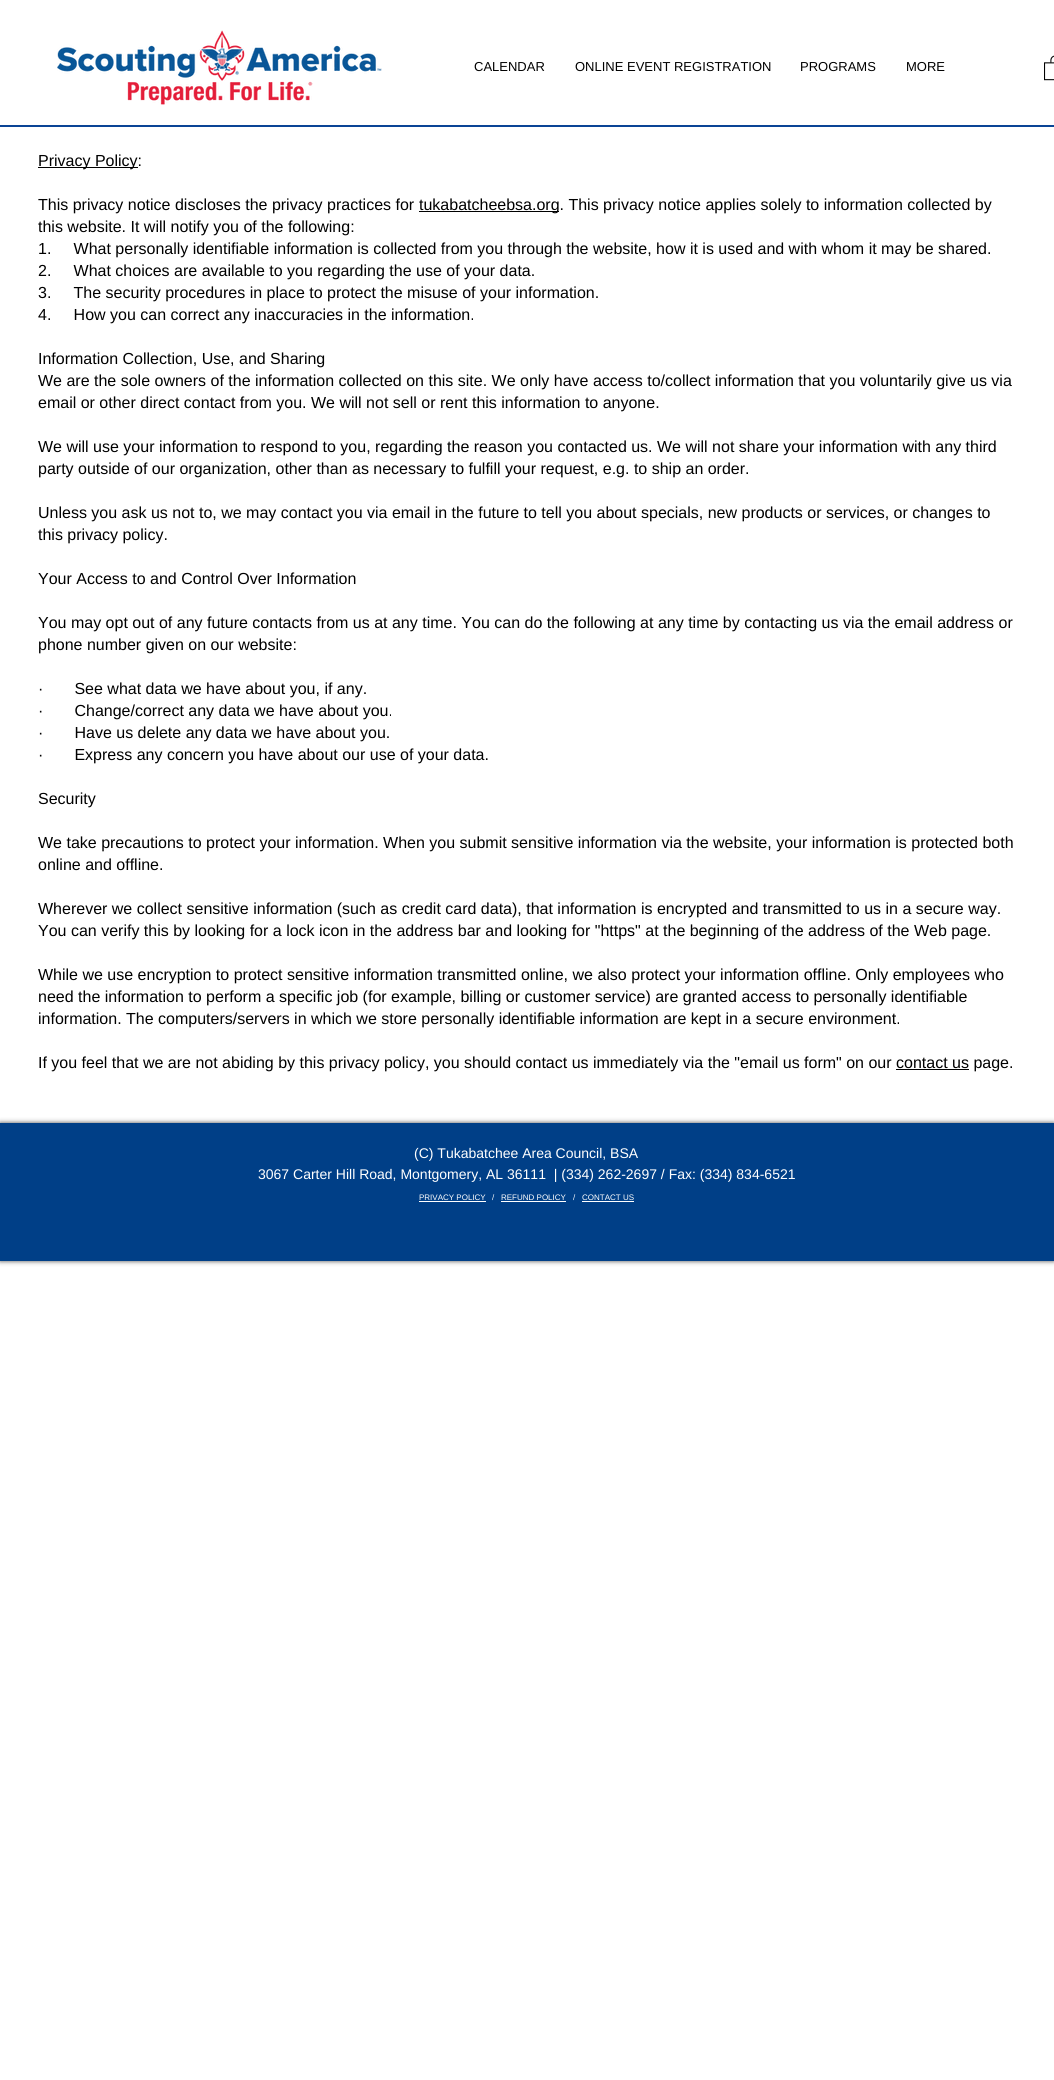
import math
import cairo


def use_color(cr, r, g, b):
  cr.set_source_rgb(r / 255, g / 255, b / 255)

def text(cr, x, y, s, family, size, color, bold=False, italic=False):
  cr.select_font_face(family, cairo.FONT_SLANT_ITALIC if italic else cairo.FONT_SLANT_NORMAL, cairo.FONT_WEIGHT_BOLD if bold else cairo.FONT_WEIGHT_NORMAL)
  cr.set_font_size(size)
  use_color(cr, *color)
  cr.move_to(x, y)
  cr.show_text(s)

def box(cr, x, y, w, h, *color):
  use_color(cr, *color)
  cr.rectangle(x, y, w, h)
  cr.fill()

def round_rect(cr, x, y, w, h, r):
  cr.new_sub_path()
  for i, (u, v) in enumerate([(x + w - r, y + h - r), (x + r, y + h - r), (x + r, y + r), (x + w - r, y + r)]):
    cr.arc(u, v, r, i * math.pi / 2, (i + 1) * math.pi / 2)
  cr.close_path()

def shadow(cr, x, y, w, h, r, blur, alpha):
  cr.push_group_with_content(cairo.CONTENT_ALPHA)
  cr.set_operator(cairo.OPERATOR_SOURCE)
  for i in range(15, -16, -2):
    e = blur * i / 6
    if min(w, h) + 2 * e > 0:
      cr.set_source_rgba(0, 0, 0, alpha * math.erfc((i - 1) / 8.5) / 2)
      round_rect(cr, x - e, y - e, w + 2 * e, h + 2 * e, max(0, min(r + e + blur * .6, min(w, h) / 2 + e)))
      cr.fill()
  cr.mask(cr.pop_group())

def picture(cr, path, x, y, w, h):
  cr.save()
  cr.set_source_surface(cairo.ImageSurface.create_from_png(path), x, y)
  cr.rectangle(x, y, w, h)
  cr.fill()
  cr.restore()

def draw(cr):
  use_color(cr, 255, 255, 255)
  cr.paint()
  picture(cr, "img_01.png", 57, 30, 325, 75)
  picture(cr, "img_02.png", 1044, 55, 10, 26)
  box(cr, 0, 125, 1054, 2, 10, 68, 149)
  box(cr, 38, 167, 100, 1, 0, 0, 0)
  box(cr, 419, 211, 140, 1, 0, 0, 0)
  box(cr, 896, 1069, 73, 1, 0, 0, 0)
  use_color(cr, 0, 0, 0)
  shadow(cr, 0, 1123, 1054, 138, 0, 2.5, 0.7)
  box(cr, 0, 1123, 1054, 138, 0, 63, 135)
  box(cr, 419, 1201, 67, 1, 255, 255, 255)
  box(cr, 501, 1201, 65, 1, 255, 255, 255)
  box(cr, 582, 1201, 52, 1, 255, 255, 255)
  text(cr, 474, 71, "CALENDAR", "Liberation Sans", 13, (0, 0, 0))
  text(cr, 575, 71, "ONLINE EVENT REGISTRATION", "Liberation Sans", 13, (0, 0, 0))
  text(cr, 800, 71, "PROGRAMS", "Liberation Sans", 13, (0, 0, 0))
  text(cr, 906, 71, "MORE", "Liberation Sans", 13, (0, 0, 0))
  text(cr, 38, 166, "Privacy Policy:", "Liberation Sans", 16, (0, 0, 0))
  text(cr, 38, 210, "This privacy notice discloses the privacy practices for", "Liberation Sans", 16, (0, 0, 0))
  text(cr, 419, 210, "tukabatcheebsa.org. This privacy notice applies solely to information collected by", "Liberation Sans", 16, (0, 0, 0))
  text(cr, 38, 232, "this website. It will notify you of the following:", "Liberation Sans", 16, (0, 0, 0))
  text(cr, 38, 254, "1.     What personally identifiable information is collected from you through the website, how it is used and with whom it may be shared.", "Liberation Sans", 16, (0, 0, 0))
  text(cr, 38, 276, "2.     What choices are available to you regarding the use of your data.", "Liberation Sans", 16, (0, 0, 0))
  text(cr, 38, 298, "3.     The security procedures in place to protect the misuse of your information.", "Liberation Sans", 16, (0, 0, 0))
  text(cr, 38, 320, "4.     How you can correct any inaccuracies in the information.", "Liberation Sans", 16, (0, 0, 0))
  text(cr, 38, 364, "Information Collection, Use, and Sharing", "Liberation Sans", 16, (0, 0, 0))
  text(cr, 38, 386, "We are the sole owners of the information collected on this site. We only have access to/collect information that you voluntarily give us via", "Liberation Sans", 16, (0, 0, 0))
  text(cr, 38, 408, "email or other direct contact from you. We will not sell or rent this information to anyone.", "Liberation Sans", 16, (0, 0, 0))
  text(cr, 38, 452, "We will use your information to respond to you, regarding the reason you contacted us. We will not share your information with any third", "Liberation Sans", 16, (0, 0, 0))
  text(cr, 38, 474, "party outside of our organization, other than as necessary to fulfill your request, e.g. to ship an order.", "Liberation Sans", 16, (0, 0, 0))
  text(cr, 38, 518, "Unless you ask us not to, we may contact you via email in the future to tell you about specials, new products or services, or changes to", "Liberation Sans", 16, (0, 0, 0))
  text(cr, 38, 540, "this privacy policy.", "Liberation Sans", 16, (0, 0, 0))
  text(cr, 38, 584, "Your Access to and Control Over Information", "Liberation Sans", 16, (0, 0, 0))
  text(cr, 38, 628, "You may opt out of any future contacts from us at any time. You can do the following at any time by contacting us via the email address or", "Liberation Sans", 16, (0, 0, 0))
  text(cr, 38, 650, "phone number given on our website:", "Liberation Sans", 16, (0, 0, 0))
  text(cr, 38, 694, "·       See what data we have about you, if any.", "Liberation Sans", 16, (0, 0, 0))
  text(cr, 38, 716, "·       Change/correct any data we have about you.", "Liberation Sans", 16, (0, 0, 0))
  text(cr, 38, 738, "·       Have us delete any data we have about you.", "Liberation Sans", 16, (0, 0, 0))
  text(cr, 38, 760, "·       Express any concern you have about our use of your data.", "Liberation Sans", 16, (0, 0, 0))
  text(cr, 38, 804, "Security", "Liberation Sans", 16, (0, 0, 0))
  text(cr, 38, 848, "We take precautions to protect your information. When you submit sensitive information via the website, your information is protected both", "Liberation Sans", 16, (0, 0, 0))
  text(cr, 38, 870, "online and offline.", "Liberation Sans", 16, (0, 0, 0))
  text(cr, 38, 914, "Wherever we collect sensitive information (such as credit card data), that information is encrypted and transmitted to us in a secure way.", "Liberation Sans", 16, (0, 0, 0))
  text(cr, 38, 936, "You can verify this by looking for a lock icon in the address bar and looking for \"https\" at the beginning of the address of the Web page.", "Liberation Sans", 16, (0, 0, 0))
  text(cr, 38, 980, "While we use encryption to protect sensitive information transmitted online, we also protect your information offline. Only employees who", "Liberation Sans", 16, (0, 0, 0))
  text(cr, 38, 1002, "need the information to perform a specific job (for example, billing or customer service) are granted access to personally identifiable", "Liberation Sans", 16, (0, 0, 0))
  text(cr, 38, 1024, "information. The computers/servers in which we store personally identifiable information are kept in a secure environment.", "Liberation Sans", 16, (0, 0, 0))
  text(cr, 38, 1068, "If you feel that we are not abiding by this privacy policy, you should contact us immediately via the \"email us form\" on our contact us page.", "Liberation Sans", 16, (0, 0, 0))
  text(cr, 414, 1158, "(C) Tukabatchee Area Council, BSA", "Liberation Sans", 14, (255, 255, 255))
  text(cr, 258, 1179, "3067 Carter Hill Road, Montgomery, AL 36111  | (334) 262-2697 / Fax: (334) 834-6521", "Liberation Sans", 14, (255, 255, 255))
  text(cr, 419, 1200, "PRIVACY POLICY", "Liberation Sans", 8, (255, 255, 255))
  text(cr, 492, 1200, "/", "Liberation Sans", 8, (255, 255, 255))
  text(cr, 501, 1200, "REFUND POLICY", "Liberation Sans", 8, (255, 255, 255))
  text(cr, 573, 1200, "/", "Liberation Sans", 8, (255, 255, 255))
  text(cr, 582, 1200, "CONTACT US", "Liberation Sans", 8, (255, 255, 255))


surface = cairo.ImageSurface(cairo.FORMAT_RGB24, 1054, 2080)
cr = cairo.Context(surface)
options = cairo.FontOptions()
options.set_hint_metrics(cairo.HINT_METRICS_OFF)
options.set_hint_style(cairo.HINT_STYLE_NONE)
cr.set_font_options(options)
cr.set_miter_limit(4)
draw(cr)
surface.write_to_png("out.png")
